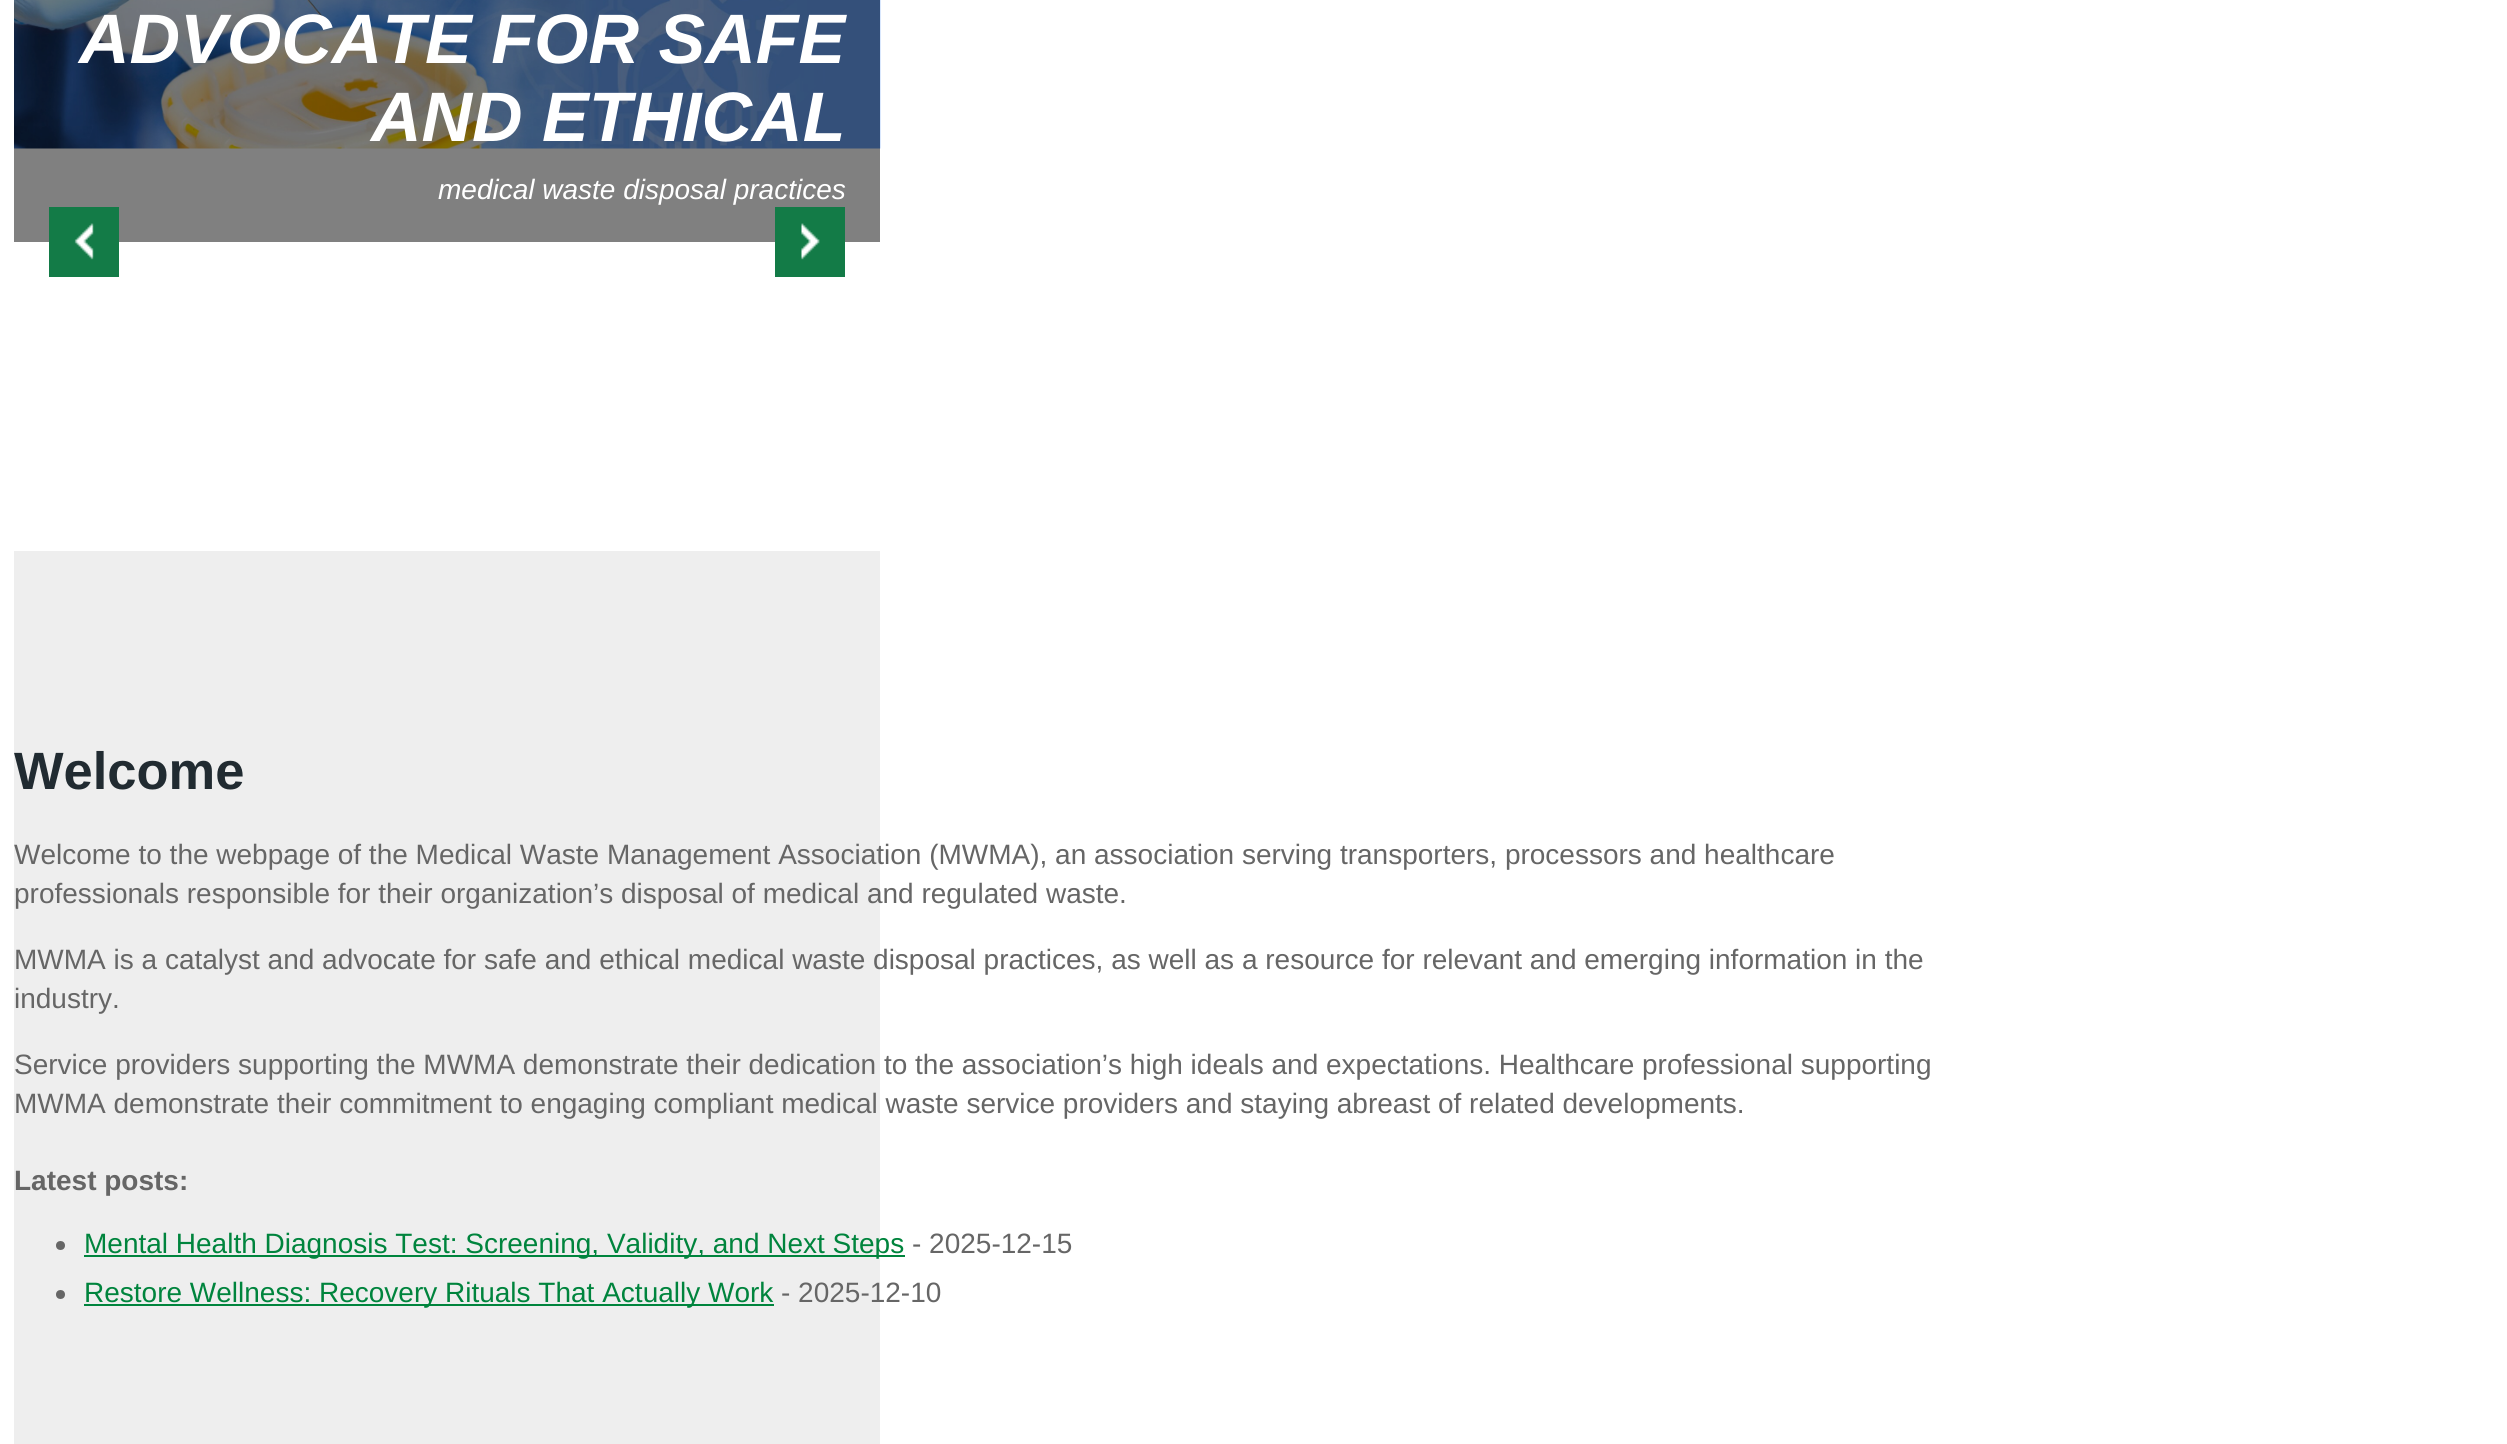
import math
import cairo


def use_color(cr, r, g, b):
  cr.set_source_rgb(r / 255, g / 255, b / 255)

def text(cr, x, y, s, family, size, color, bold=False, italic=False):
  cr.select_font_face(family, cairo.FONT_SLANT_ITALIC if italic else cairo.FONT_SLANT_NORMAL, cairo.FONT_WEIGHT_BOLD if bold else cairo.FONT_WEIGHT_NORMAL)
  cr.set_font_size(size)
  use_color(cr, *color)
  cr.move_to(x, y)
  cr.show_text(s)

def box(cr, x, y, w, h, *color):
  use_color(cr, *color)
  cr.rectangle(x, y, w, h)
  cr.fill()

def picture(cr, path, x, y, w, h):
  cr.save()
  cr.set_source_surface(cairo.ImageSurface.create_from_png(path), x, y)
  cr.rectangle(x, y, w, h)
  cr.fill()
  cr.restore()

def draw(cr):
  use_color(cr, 255, 255, 255)
  cr.paint()
  box(cr, 14, 148, 866, 94, 128, 128, 128)
  picture(cr, "img_01.png", 14, 0, 867, 149)
  box(cr, 49, 207, 70, 70, 19, 123, 71)
  picture(cr, "img_02.png", 74, 223, 20, 37)
  box(cr, 775, 207, 70, 70, 19, 123, 71)
  picture(cr, "img_03.png", 801, 223, 19, 37)
  box(cr, 14, 551, 866, 893, 238, 238, 238)
  use_color(cr, 102, 102, 102)
  cr.arc(60.5, 1245.5, 4.5, 0, 2 * math.pi)
  cr.fill()
  box(cr, 84, 1255, 821, 2, 0, 132, 61)
  use_color(cr, 102, 102, 102)
  cr.arc(60.5, 1294.5, 4.5, 0, 2 * math.pi)
  cr.fill()
  box(cr, 84, 1304, 690, 2, 0, 132, 61)
  text(cr, 79, 63, "ADVOCATE FOR SAFE", "Liberation Sans", 70, (255, 255, 255), bold=True, italic=True)
  text(cr, 371, 141, "AND ETHICAL", "Liberation Sans", 70, (255, 255, 255), bold=True, italic=True)
  text(cr, 438, 199, "medical waste disposal practices", "Liberation Sans", 28, (255, 255, 255), italic=True)
  text(cr, 14, 789, "Welcome", "Liberation Sans", 52.5, (33, 43, 49), bold=True)
  text(cr, 14, 864, "Welcome to the webpage of the Medical Waste Management Association (MWMA), an association serving transporters, processors and healthcare", "Liberation Sans", 28, (102, 102, 102))
  text(cr, 14, 903, "professionals responsible for their organization’s disposal of medical and regulated waste.", "Liberation Sans", 28, (102, 102, 102))
  text(cr, 14, 969, "MWMA is a catalyst and advocate for safe and ethical medical waste disposal practices, as well as a resource for relevant and emerging information in the", "Liberation Sans", 28, (102, 102, 102))
  text(cr, 14, 1008, "industry.", "Liberation Sans", 28, (102, 102, 102))
  text(cr, 14, 1074, "Service providers supporting the MWMA demonstrate their dedication to the association’s high ideals and expectations. Healthcare professional supporting", "Liberation Sans", 28, (102, 102, 102))
  text(cr, 14, 1113, "MWMA demonstrate their commitment to engaging compliant medical waste service providers and staying abreast of related developments.", "Liberation Sans", 28, (102, 102, 102))
  text(cr, 14, 1190, "Latest posts:", "Liberation Sans", 28, (102, 102, 102), bold=True)
  text(cr, 84, 1253, "Mental Health Diagnosis Test: Screening, Validity, and Next Steps", "Liberation Sans", 28, (0, 132, 61))
  text(cr, 912, 1253, "- 2025-12-15", "Liberation Sans", 28, (102, 102, 102))
  text(cr, 84, 1302, "Restore Wellness: Recovery Rituals That Actually Work", "Liberation Sans", 28, (0, 132, 61))
  text(cr, 781, 1302, "- 2025-12-10", "Liberation Sans", 28, (102, 102, 102))


surface = cairo.ImageSurface(cairo.FORMAT_RGB24, 2507, 1444)
cr = cairo.Context(surface)
options = cairo.FontOptions()
options.set_hint_metrics(cairo.HINT_METRICS_OFF)
options.set_hint_style(cairo.HINT_STYLE_NONE)
cr.set_font_options(options)
cr.set_miter_limit(4)
draw(cr)
surface.write_to_png("out.png")
